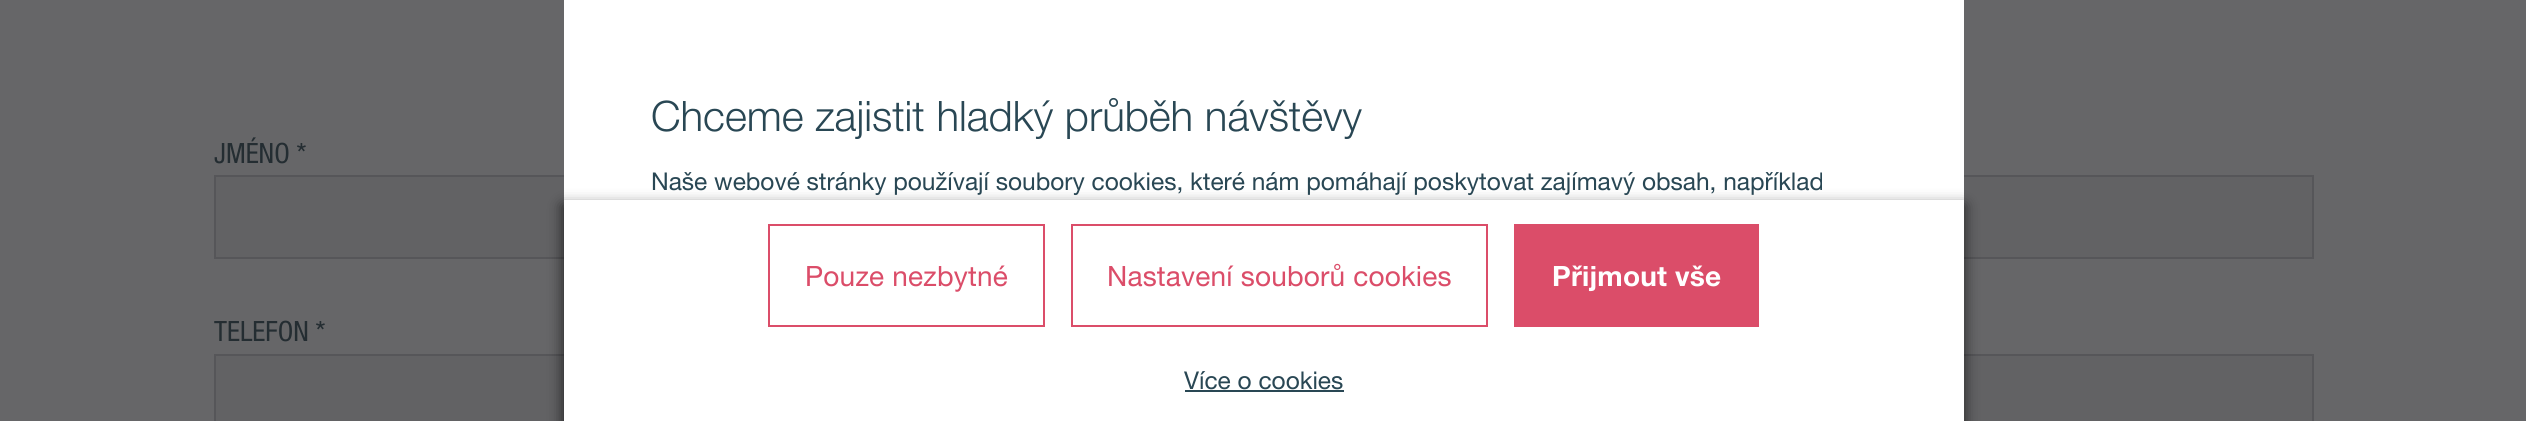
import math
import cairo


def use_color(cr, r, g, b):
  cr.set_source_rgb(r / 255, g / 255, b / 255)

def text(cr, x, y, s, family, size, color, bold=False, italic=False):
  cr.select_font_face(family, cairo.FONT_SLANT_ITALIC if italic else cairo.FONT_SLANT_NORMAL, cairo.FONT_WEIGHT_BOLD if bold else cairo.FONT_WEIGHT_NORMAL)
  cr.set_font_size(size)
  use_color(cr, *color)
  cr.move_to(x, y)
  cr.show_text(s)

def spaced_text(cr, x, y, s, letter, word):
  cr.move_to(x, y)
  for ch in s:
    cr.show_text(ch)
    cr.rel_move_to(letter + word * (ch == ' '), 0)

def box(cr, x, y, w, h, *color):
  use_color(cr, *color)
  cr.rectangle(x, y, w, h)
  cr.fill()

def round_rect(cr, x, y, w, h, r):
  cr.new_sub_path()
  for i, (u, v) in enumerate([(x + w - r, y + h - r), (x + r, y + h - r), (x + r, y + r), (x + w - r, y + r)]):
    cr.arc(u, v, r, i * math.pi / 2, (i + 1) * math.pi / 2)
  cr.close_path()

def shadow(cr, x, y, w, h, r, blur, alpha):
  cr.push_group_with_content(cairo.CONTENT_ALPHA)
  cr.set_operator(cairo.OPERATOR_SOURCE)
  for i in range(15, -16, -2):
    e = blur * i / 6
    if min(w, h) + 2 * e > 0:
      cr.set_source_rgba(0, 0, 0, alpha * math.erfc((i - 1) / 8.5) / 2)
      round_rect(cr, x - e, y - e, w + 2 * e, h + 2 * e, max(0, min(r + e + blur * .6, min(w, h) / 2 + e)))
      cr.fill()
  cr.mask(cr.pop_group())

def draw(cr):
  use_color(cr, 102, 102, 104)
  cr.paint()
  box(cr, 216, 177, 348, 80, 98, 98, 100)
  cr.rectangle(215, 176, 1021, 82)
  use_color(cr, 86, 86, 89)
  cr.stroke()
  box(cr, 1964, 177, 348, 80, 98, 98, 100)
  cr.rectangle(1291, 176, 1022, 82)
  use_color(cr, 86, 86, 89)
  cr.stroke()
  use_color(cr, 98, 98, 100)
  cr.rectangle(215, 355, 2098, 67)
  cr.fill_preserve()
  use_color(cr, 86, 86, 89)
  cr.stroke()
  box(cr, 564, 0, 1400, 421, 255, 255, 255)
  cr.save()
  cr.set_fill_rule(cairo.FILL_RULE_EVEN_ODD)
  cr.new_path()
  cr.move_to(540, 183)
  cr.line_to(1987, 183)
  cr.line_to(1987, 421)
  cr.line_to(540, 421)
  cr.close_path()
  cr.move_to(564, 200)
  cr.line_to(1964, 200)
  cr.line_to(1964, 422)
  cr.line_to(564, 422)
  cr.close_path()
  cr.clip()
  use_color(cr, 0, 0, 0)
  shadow(cr, 562, 205, 1403, 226, 0, 7, 0.6)
  cr.restore()
  cr.rectangle(769, 225, 275, 101)
  use_color(cr, 219, 77, 105)
  cr.stroke()
  cr.rectangle(1072, 225, 415, 101)
  cr.stroke()
  box(cr, 1514, 224, 245, 103, 219, 77, 105)
  box(cr, 1185, 390, 159, 2, 41, 71, 84)
  text(cr, 214, 163, "JMÉNO *", "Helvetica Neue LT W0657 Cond", 28, (36, 45, 50))
  text(cr, 214, 341, "TELEFON *", "Helvetica Neue LT W0657 Cond", 28, (36, 45, 50))
  text(cr, 651, 131, "Chceme zajistit hladký průběh návštěvy", "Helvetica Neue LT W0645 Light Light", 42, (41, 71, 84))
  text(cr, 651, 190, "Naše webové stránky používají soubory cookies, které nám pomáhají poskytovat zajímavý obsah, například", "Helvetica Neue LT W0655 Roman", 24.5, (41, 71, 84))
  cr.set_font_size(28)
  use_color(cr, 219, 77, 105)
  spaced_text(cr, 805, 286, "Pouze nezbytné", 0.2, 0)
  spaced_text(cr, 1107, 286, "Nastavení souborů cookies", 0.2, 0)
  cr.select_font_face("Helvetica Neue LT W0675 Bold", cairo.FONT_SLANT_NORMAL, cairo.FONT_WEIGHT_BOLD)
  use_color(cr, 255, 255, 255)
  spaced_text(cr, 1552, 286, "Přijmout vše", 0.2, 0)
  text(cr, 1184, 389, "Více o cookies", "Helvetica Neue LT W0655 Roman", 24.5, (41, 71, 84))


surface = cairo.ImageSurface(cairo.FORMAT_RGB24, 2526, 421)
cr = cairo.Context(surface)
options = cairo.FontOptions()
options.set_hint_metrics(cairo.HINT_METRICS_OFF)
options.set_hint_style(cairo.HINT_STYLE_NONE)
cr.set_font_options(options)
cr.set_miter_limit(4)
draw(cr)
surface.write_to_png("out.png")
